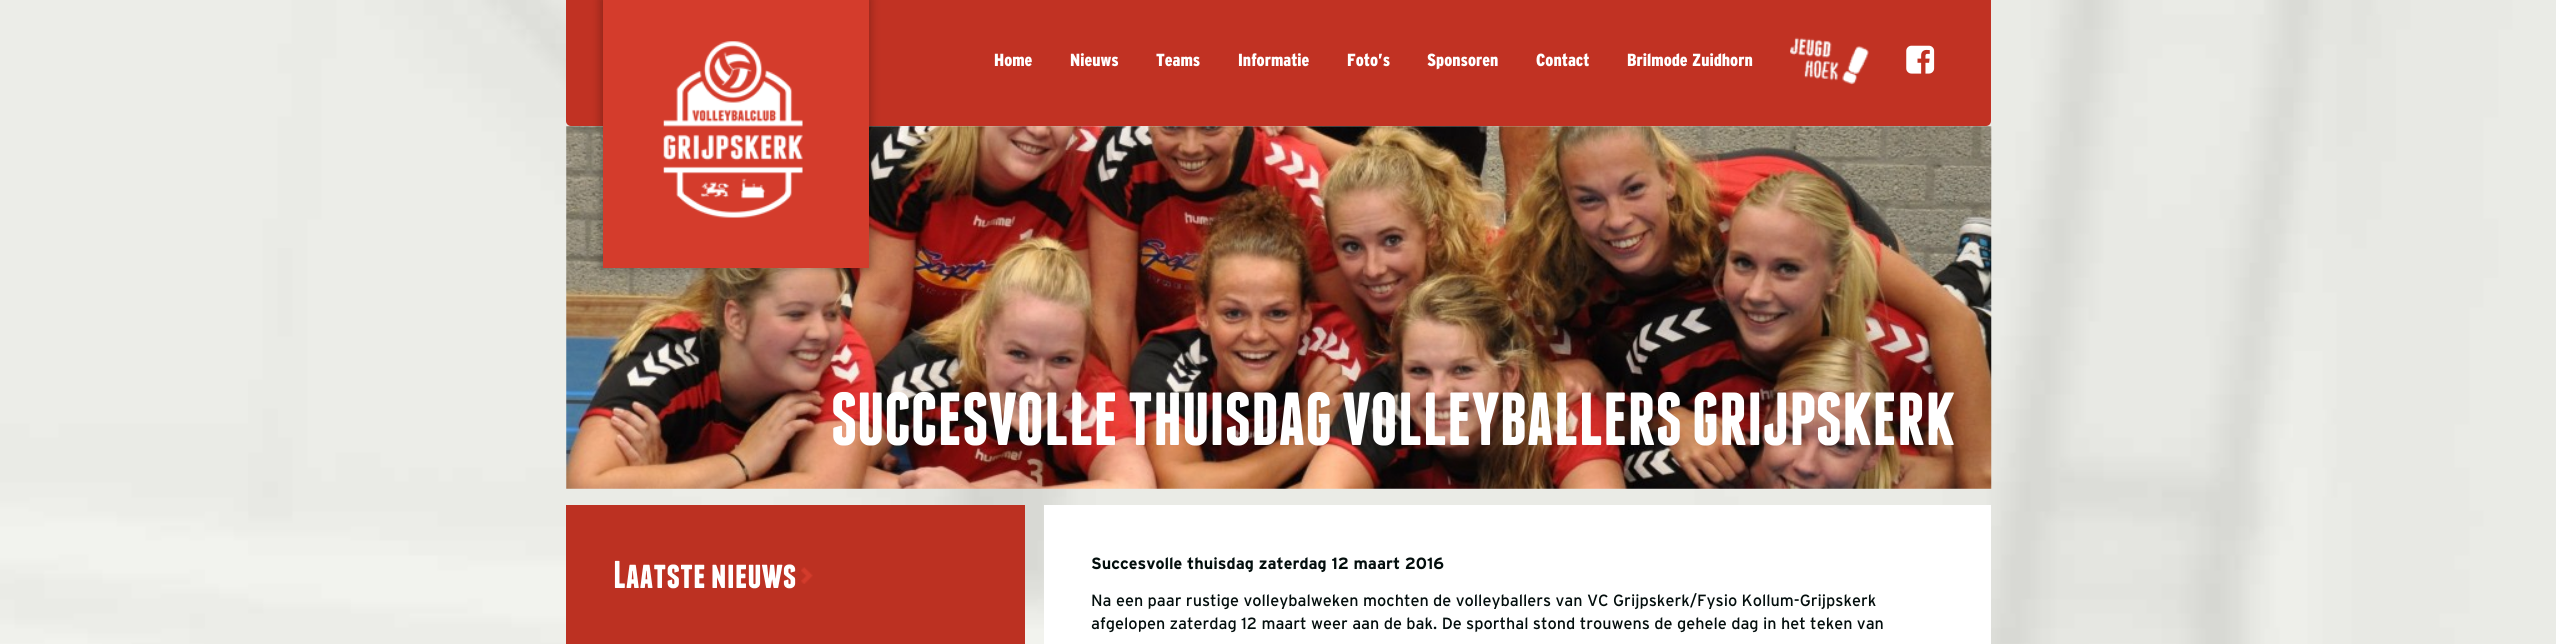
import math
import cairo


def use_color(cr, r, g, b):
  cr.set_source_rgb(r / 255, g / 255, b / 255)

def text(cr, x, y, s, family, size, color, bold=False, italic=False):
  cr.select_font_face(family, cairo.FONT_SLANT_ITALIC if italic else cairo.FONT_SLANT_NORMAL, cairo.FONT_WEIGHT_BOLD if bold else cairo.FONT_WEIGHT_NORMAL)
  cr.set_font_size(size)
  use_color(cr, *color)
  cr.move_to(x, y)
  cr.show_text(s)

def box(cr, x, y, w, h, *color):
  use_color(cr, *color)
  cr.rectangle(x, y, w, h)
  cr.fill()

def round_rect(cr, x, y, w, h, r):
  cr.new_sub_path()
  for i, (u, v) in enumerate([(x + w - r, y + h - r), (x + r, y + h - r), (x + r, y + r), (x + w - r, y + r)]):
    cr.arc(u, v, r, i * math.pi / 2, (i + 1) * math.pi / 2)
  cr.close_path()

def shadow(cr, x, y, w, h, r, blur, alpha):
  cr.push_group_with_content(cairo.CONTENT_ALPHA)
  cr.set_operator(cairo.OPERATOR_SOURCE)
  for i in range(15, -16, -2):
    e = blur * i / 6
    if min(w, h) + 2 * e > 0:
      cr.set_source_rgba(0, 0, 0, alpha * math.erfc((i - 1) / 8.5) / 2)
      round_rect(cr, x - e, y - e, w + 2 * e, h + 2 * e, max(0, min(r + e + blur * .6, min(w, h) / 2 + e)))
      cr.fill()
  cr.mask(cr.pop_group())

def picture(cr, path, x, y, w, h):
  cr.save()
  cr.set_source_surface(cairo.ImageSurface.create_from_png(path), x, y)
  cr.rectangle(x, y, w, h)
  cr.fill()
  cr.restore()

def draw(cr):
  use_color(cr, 255, 255, 255)
  cr.paint()
  picture(cr, "img_01.png", 0, 0, 2556, 644)
  box(cr, 566, 0, 1425, 5, 193, 50, 35)
  round_rect(cr, 566, 0, 1425, 126, 5)
  cr.fill()
  picture(cr, "img_05.png", 566, 126, 1426, 363)
  use_color(cr, 0, 0, 0)
  shadow(cr, 601, -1, 269, 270, 0, 5, 0.3)
  box(cr, 603, 0, 266, 268, 212, 60, 44)
  picture(cr, "img_02.png", 663, 41, 140, 177)
  picture(cr, "img_03.png", 1790, 37, 79, 48)
  picture(cr, "img_04.png", 1906, 45, 29, 29)
  box(cr, 566, 505, 459, 139, 188, 49, 34)
  picture(cr, "img_06.png", 801, 567, 12, 17)
  box(cr, 1044, 505, 947, 139, 255, 255, 255)
  text(cr, 994, 66, "Home", "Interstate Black", 17.5, (255, 255, 255))
  text(cr, 1070, 66, "Nieuws", "Interstate Black", 17.5, (255, 255, 255))
  text(cr, 1156, 66, "Teams", "Interstate Black", 17.5, (255, 255, 255))
  text(cr, 1238, 66, "Informatie", "Interstate Black", 17.5, (255, 255, 255))
  text(cr, 1347, 66, "Foto’s", "Interstate Black", 17.5, (255, 255, 255))
  text(cr, 1427, 66, "Sponsoren", "Interstate Black", 17.5, (255, 255, 255))
  text(cr, 1536, 66, "Contact", "Interstate Black", 17.5, (255, 255, 255))
  text(cr, 1627, 66, "Brilmode Zuidhorn", "Interstate Black", 17.5, (255, 255, 255))
  text(cr, 831, 445, "SUCCESVOLLE THUISDAG VOLLEYBALLERS GRIJPSKERK", "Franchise", 75, (255, 255, 255), bold=True)
  text(cr, 613, 588, "Laatste nieuws", "Franchise", 38.75, (255, 255, 255), bold=True)
  text(cr, 1091, 569, "Succesvolle thuisdag zaterdag 12 maart 2016", "Interstate", 16.25, (3, 14, 13), bold=True)
  text(cr, 1091, 606, "Na een paar rustige volleybalweken mochten de volleyballers van VC Grijpskerk/Fysio Kollum-Grijpskerk", "Interstate", 16.25, (3, 14, 13))
  text(cr, 1091, 629, "afgelopen zaterdag 12 maart weer aan de bak. De sporthal stond trouwens de gehele dag in het teken van", "Interstate", 16.25, (3, 14, 13))


surface = cairo.ImageSurface(cairo.FORMAT_RGB24, 2556, 644)
cr = cairo.Context(surface)
options = cairo.FontOptions()
options.set_hint_metrics(cairo.HINT_METRICS_OFF)
options.set_hint_style(cairo.HINT_STYLE_NONE)
cr.set_font_options(options)
cr.set_miter_limit(4)
draw(cr)
surface.write_to_png("out.png")
